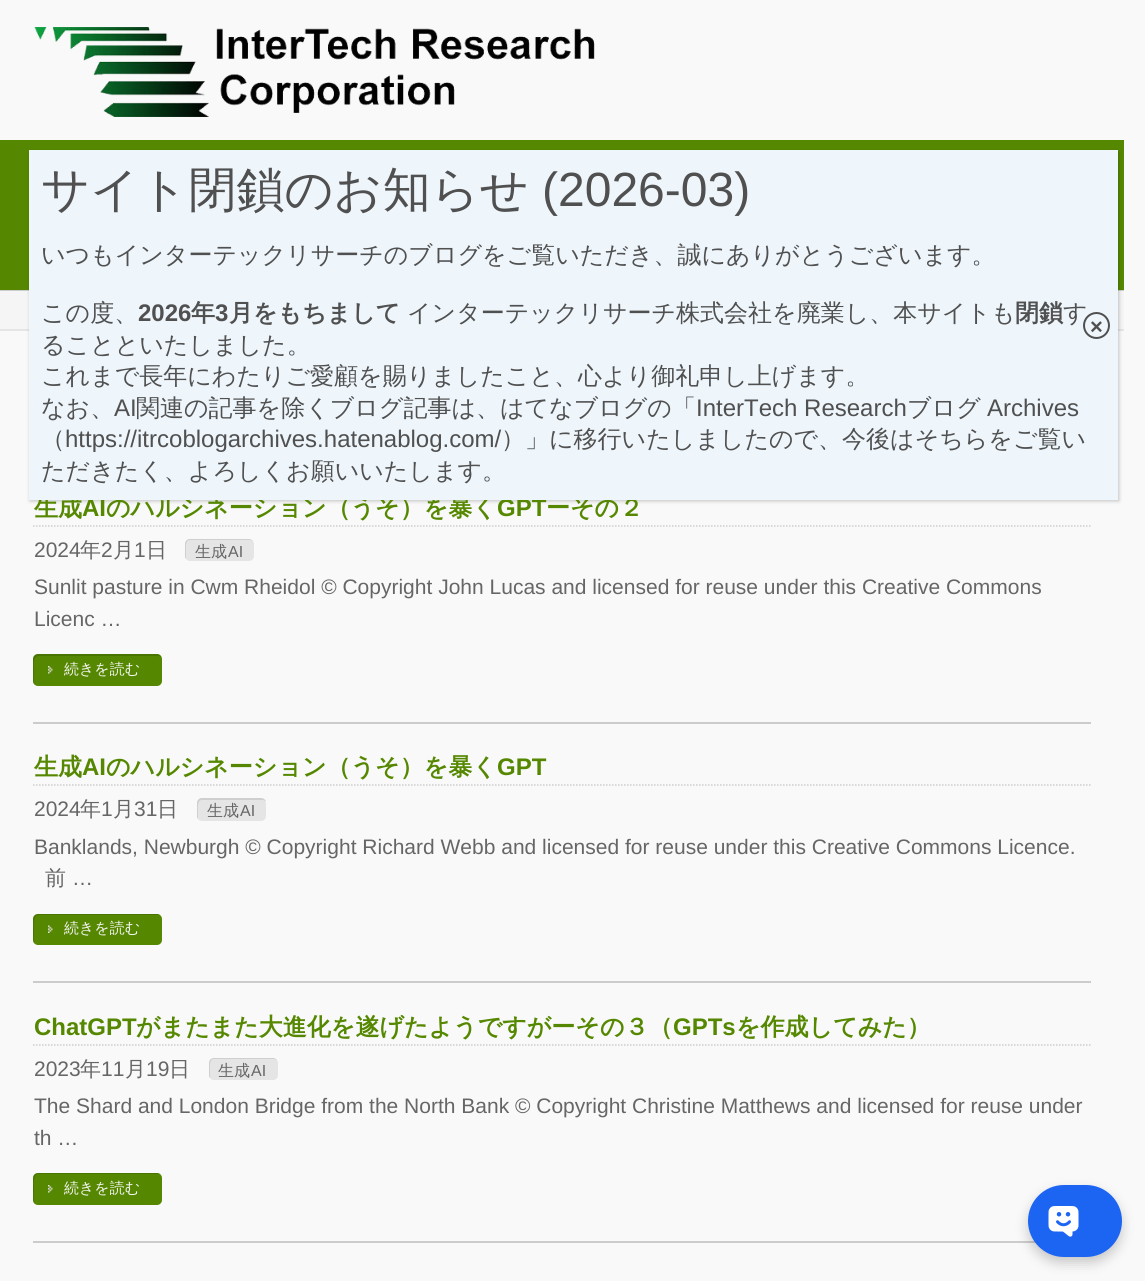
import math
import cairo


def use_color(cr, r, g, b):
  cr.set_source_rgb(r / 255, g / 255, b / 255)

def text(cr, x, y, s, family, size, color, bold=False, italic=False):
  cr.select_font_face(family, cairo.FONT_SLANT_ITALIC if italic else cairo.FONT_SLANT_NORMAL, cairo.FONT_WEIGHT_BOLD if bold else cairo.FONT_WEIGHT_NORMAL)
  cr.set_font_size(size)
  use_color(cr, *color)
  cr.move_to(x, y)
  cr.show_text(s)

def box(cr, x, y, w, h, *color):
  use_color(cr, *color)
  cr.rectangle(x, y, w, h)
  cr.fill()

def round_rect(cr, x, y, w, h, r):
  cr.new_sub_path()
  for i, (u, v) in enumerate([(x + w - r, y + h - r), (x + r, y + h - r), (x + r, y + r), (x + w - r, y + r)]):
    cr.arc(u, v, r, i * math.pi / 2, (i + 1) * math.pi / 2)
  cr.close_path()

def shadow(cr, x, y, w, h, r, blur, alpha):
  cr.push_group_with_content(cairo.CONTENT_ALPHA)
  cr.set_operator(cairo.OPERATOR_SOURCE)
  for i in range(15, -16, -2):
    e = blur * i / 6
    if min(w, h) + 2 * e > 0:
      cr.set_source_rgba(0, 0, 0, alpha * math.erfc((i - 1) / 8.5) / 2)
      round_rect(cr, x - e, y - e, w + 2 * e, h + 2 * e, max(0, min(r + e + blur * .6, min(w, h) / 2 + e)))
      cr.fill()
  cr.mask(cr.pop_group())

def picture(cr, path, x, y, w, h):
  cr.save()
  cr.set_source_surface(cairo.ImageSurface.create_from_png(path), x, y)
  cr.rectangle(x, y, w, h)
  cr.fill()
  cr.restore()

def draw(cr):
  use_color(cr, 249, 249, 249)
  cr.paint()
  box(cr, 0, 140, 1124, 54, 85, 136, 0)
  box(cr, 0, 194, 1124, 96, 85, 136, 0)
  box(cr, 0, 290, 1124, 1, 204, 204, 204)
  box(cr, 0, 291, 1124, 38, 245, 245, 245)
  box(cr, 0, 329, 1124, 2, 229, 229, 229)
  use_color(cr, 2, 2, 2)
  shadow(cr, 30, 152, 1089, 349, 0, 2, 0.23)
  picture(cr, "img_01.png", 34, 27, 561, 90)
  box(cr, 33, 722, 1058, 2, 204, 204, 204)
  cr.new_path()
  cr.move_to(33, 526)
  cr.line_to(1090.5, 526)
  cr.set_line_width(1.5)
  cr.set_dash([1.5, 1.5])
  cr.stroke()
  use_color(cr, 229, 229, 229)
  round_rect(cr, 185, 539, 69, 22, 5)
  cr.fill()
  cr.set_source_rgba(0, 0, 0, 0.1)
  cr.new_path()
  cr.move_to(190, 540)
  cr.line_to(250, 540)
  cr.line_to(253, 541)
  cr.curve_to(252, 540, 250, 539, 249, 539)
  cr.line_to(190, 539)
  cr.curve_to(187, 539, 185, 541, 185, 544)
  cr.line_to(185, 556)
  cr.curve_to(185, 557, 185, 558, 186, 559)
  cr.line_to(186, 551)
  cr.curve_to(186, 548, 185, 540, 190, 540)
  cr.close_path()
  cr.fill()
  use_color(cr, 85, 136, 0)
  round_rect(cr, 33, 654, 129, 32, 5)
  cr.fill()
  picture(cr, "img_02.png", 48, 666, 5, 8)
  cr.set_source_rgba(0, 0, 0, 0.15)
  cr.new_path()
  cr.move_to(39, 656)
  cr.line_to(159, 656)
  cr.line_to(161, 657)
  cr.curve_to(161, 655, 159, 654, 157, 654)
  cr.line_to(38, 654)
  cr.curve_to(35, 654, 33, 656, 33, 659)
  cr.line_to(33, 681)
  cr.curve_to(33, 683, 34, 684, 35, 685)
  cr.curve_to(33, 682, 34, 674, 34, 671)
  cr.curve_to(34, 667, 32, 656, 39, 656)
  cr.close_path()
  cr.fill()
  box(cr, 33, 981, 1058, 2, 204, 204, 204)
  cr.new_path()
  cr.move_to(33, 785)
  cr.line_to(1090.5, 785)
  cr.stroke()
  use_color(cr, 229, 229, 229)
  round_rect(cr, 197, 798, 69, 23, 5)
  cr.fill()
  cr.set_source_rgba(0, 0, 0, 0.1)
  cr.new_path()
  cr.move_to(202, 800)
  cr.line_to(262, 800)
  cr.curve_to(264, 800, 265, 801, 266, 801)
  cr.curve_to(265, 799, 263, 798, 261, 798)
  cr.line_to(202, 798)
  cr.curve_to(199, 798, 197, 800, 197, 803)
  cr.line_to(197, 816)
  cr.curve_to(197, 817, 197, 818, 198, 819)
  cr.line_to(198, 811)
  cr.curve_to(198, 808, 197, 800, 202, 800)
  cr.close_path()
  cr.fill()
  use_color(cr, 85, 136, 0)
  round_rect(cr, 33, 914, 129, 31, 5)
  cr.fill()
  picture(cr, "img_03.png", 48, 925, 5, 8)
  cr.set_source_rgba(0, 0, 0, 0.15)
  cr.new_path()
  cr.move_to(39, 915)
  cr.line_to(160, 915)
  cr.curve_to(159, 914, 158, 914, 157, 914)
  cr.line_to(38, 914)
  cr.curve_to(35, 914, 33, 916, 33, 919)
  cr.line_to(33, 940)
  cr.curve_to(33, 942, 34, 943, 35, 944)
  cr.curve_to(33, 942, 34, 934, 34, 931)
  cr.curve_to(34, 927, 32, 915, 39, 915)
  cr.close_path()
  cr.fill()
  box(cr, 33, 1241, 1003, 2, 204, 204, 204)
  cr.new_path()
  cr.move_to(33, 1045)
  cr.line_to(1090.5, 1045)
  cr.stroke()
  use_color(cr, 229, 229, 229)
  round_rect(cr, 209, 1058, 69, 22, 5)
  cr.fill()
  cr.set_source_rgba(0, 0, 0, 0.1)
  cr.new_path()
  cr.move_to(214, 1059)
  cr.line_to(274, 1059)
  cr.line_to(277, 1060)
  cr.curve_to(276, 1059, 274, 1058, 273, 1058)
  cr.line_to(214, 1058)
  cr.curve_to(211, 1058, 209, 1060, 209, 1063)
  cr.line_to(209, 1075)
  cr.curve_to(209, 1076, 209, 1077, 210, 1078)
  cr.line_to(210, 1070)
  cr.curve_to(210, 1067, 209, 1059, 214, 1059)
  cr.close_path()
  cr.fill()
  use_color(cr, 85, 136, 0)
  round_rect(cr, 33, 1173, 129, 32, 5)
  cr.fill()
  picture(cr, "img_02.png", 48, 1185, 5, 8)
  cr.set_source_rgba(0, 0, 0, 0.15)
  cr.new_path()
  cr.move_to(39, 1174)
  cr.line_to(159, 1174)
  cr.line_to(161, 1174)
  cr.curve_to(160, 1174, 158, 1173, 157, 1173)
  cr.line_to(38, 1173)
  cr.curve_to(35, 1173, 33, 1175, 33, 1178)
  cr.line_to(33, 1200)
  cr.curve_to(33, 1202, 34, 1203, 35, 1204)
  cr.curve_to(33, 1201, 34, 1193, 34, 1190)
  cr.curve_to(34, 1187, 32, 1174, 39, 1174)
  cr.close_path()
  cr.fill()
  use_color(cr, 0, 0, 0)
  shadow(cr, 1028, 1191, 94, 72, 36, 6, 0.2)
  use_color(cr, 28, 100, 242)
  round_rect(cr, 1028, 1185, 94, 72, 36)
  cr.fill()
  picture(cr, "img_04.png", 1048, 1206, 31, 31)
  text(cr, 34, 516, "生成", "WenQuanYi Zen Hei", 24, (85, 136, 0), bold=True)
  text(cr, 82, 516, "AI", "Liberation Sans", 24, (85, 136, 0), bold=True)
  text(cr, 106, 516, "のハルシネーション（うそ）を暴く", "WenQuanYi Zen Hei", 24, (85, 136, 0), bold=True)
  text(cr, 497, 516, "GPT", "Liberation Sans", 24, (85, 136, 0), bold=True)
  text(cr, 546, 516, "ーその２", "WenQuanYi Zen Hei", 24, (85, 136, 0), bold=True)
  box(cr, 29, 150, 1089, 350, 238, 246, 252)
  cr.new_path()
  cr.arc(1096.5, 325.5, 12.5, 0, 2 * math.pi)
  use_color(cr, 80, 80, 80)
  cr.set_line_width(2)
  cr.set_dash([])
  cr.stroke()
  text(cr, 1090, 334, "×", "Liberation Sans", 22, (80, 80, 80), bold=True)
  text(cr, 41, 479, "ただきたく、よろしくお願いいたします。", "WenQuanYi Zen Hei Medium", 24, (80, 80, 80))
  text(cr, 501, 447, "）」に移行いたしましたので、今後はそちらをご覧い", "WenQuanYi Zen Hei Medium", 24, (80, 80, 80))
  text(cr, 65, 447, "https://itrcoblogarchives.hatenablog.com/", "Liberation Sans", 24, (80, 80, 80))
  text(cr, 41, 447, "（", "WenQuanYi Zen Hei Medium", 24, (80, 80, 80))
  text(cr, 987, 416, "Archives", "Liberation Sans", 24, (80, 80, 80))
  text(cr, 907, 416, "ブログ", "WenQuanYi Zen Hei Medium", 24, (80, 80, 80))
  text(cr, 696, 416, "InterTech Research", "Liberation Sans", 24, (80, 80, 80))
  text(cr, 136, 416, "関連の記事を除くブログ記事は、はてなブログの「", "WenQuanYi Zen Hei Medium", 24, (80, 80, 80))
  text(cr, 114, 416, "AI", "Liberation Sans", 24, (80, 80, 80))
  text(cr, 41, 416, "なお、", "WenQuanYi Zen Hei Medium", 24, (80, 80, 80))
  text(cr, 41, 384, "これまで長年にわたりご愛顧を賜りましたこと、心より御礼申し上げます。", "WenQuanYi Zen Hei Medium", 24, (80, 80, 80))
  text(cr, 41, 353, "ることといたしました。", "WenQuanYi Zen Hei Medium", 24, (80, 80, 80))
  text(cr, 1063, 321, "す", "WenQuanYi Zen Hei Medium", 24, (80, 80, 80))
  text(cr, 1015, 321, "閉鎖", "WenQuanYi Zen Hei", 24, (80, 80, 80), bold=True)
  text(cr, 407, 321, "インターテックリサーチ株式会社を廃業し、本サイトも", "WenQuanYi Zen Hei Medium", 24, (80, 80, 80))
  text(cr, 229, 321, "月をもちまして", "WenQuanYi Zen Hei", 24, (80, 80, 80), bold=True)
  text(cr, 215, 321, "3", "Liberation Sans", 24, (80, 80, 80), bold=True)
  text(cr, 191, 321, "年", "WenQuanYi Zen Hei", 24, (80, 80, 80), bold=True)
  text(cr, 138, 321, "2026", "Liberation Sans", 24, (80, 80, 80), bold=True)
  text(cr, 41, 321, "この度、", "WenQuanYi Zen Hei Medium", 24, (80, 80, 80))
  text(cr, 41, 263, "いつもインターテックリサーチのブログをご覧いただき、誠にありがとうございます。", "WenQuanYi Zen Hei Medium", 24, (80, 80, 80))
  text(cr, 542, 206, "(2026-03)", "Liberation Sans", 48, (80, 80, 80))
  text(cr, 41, 206, "サイト閉鎖のお知らせ", "WenQuanYi Zen Hei Medium", 48, (80, 80, 80))
  text(cr, 34, 557, "2024", "Liberation Sans", 21, (102, 102, 102))
  text(cr, 80, 557, "年", "WenQuanYi Zen Hei Medium", 21, (102, 102, 102))
  text(cr, 101, 557, "2", "Liberation Sans", 21, (102, 102, 102))
  text(cr, 113, 557, "月", "WenQuanYi Zen Hei Medium", 21, (102, 102, 102))
  text(cr, 134, 557, "1", "Liberation Sans", 21, (102, 102, 102))
  text(cr, 146, 557, "日", "WenQuanYi Zen Hei Medium", 21, (102, 102, 102))
  text(cr, 195, 557, "生成", "WenQuanYi Zen Hei Medium", 16, (102, 102, 102))
  text(cr, 228, 557, "AI", "Liberation Sans", 16, (102, 102, 102))
  text(cr, 34, 594, "Sunlit pasture in Cwm Rheidol © Copyright John Lucas and licensed for reuse under this Creative Commons", "Liberation Sans", 21, (102, 102, 102))
  text(cr, 34, 626, "Licenc …", "Liberation Sans", 21, (102, 102, 102))
  text(cr, 64, 674, "続きを読む", "WenQuanYi Zen Hei Medium", 15, (245, 245, 245))
  text(cr, 34, 775, "生成", "WenQuanYi Zen Hei", 24, (85, 136, 0), bold=True)
  text(cr, 82, 775, "AI", "Liberation Sans", 24, (85, 136, 0), bold=True)
  text(cr, 106, 775, "のハルシネーション（うそ）を暴く", "WenQuanYi Zen Hei", 24, (85, 136, 0), bold=True)
  text(cr, 497, 775, "GPT", "Liberation Sans", 24, (85, 136, 0), bold=True)
  text(cr, 34, 816, "2024", "Liberation Sans", 21, (102, 102, 102))
  text(cr, 80, 816, "年", "WenQuanYi Zen Hei Medium", 21, (102, 102, 102))
  text(cr, 101, 816, "1", "Liberation Sans", 21, (102, 102, 102))
  text(cr, 113, 816, "月", "WenQuanYi Zen Hei Medium", 21, (102, 102, 102))
  text(cr, 134, 816, "31", "Liberation Sans", 21, (102, 102, 102))
  text(cr, 157, 816, "日", "WenQuanYi Zen Hei Medium", 21, (102, 102, 102))
  text(cr, 207, 816, "生成", "WenQuanYi Zen Hei Medium", 16, (102, 102, 102))
  text(cr, 240, 816, "AI", "Liberation Sans", 16, (102, 102, 102))
  text(cr, 34, 854, "Banklands, Newburgh © Copyright Richard Webb and licensed for reuse under this Creative Commons Licence.", "Liberation Sans", 21, (102, 102, 102))
  text(cr, 45, 885, "前", "WenQuanYi Zen Hei Medium", 21, (102, 102, 102))
  text(cr, 72, 885, "…", "Liberation Sans", 21, (102, 102, 102))
  text(cr, 64, 933, "続きを読む", "WenQuanYi Zen Hei Medium", 15, (245, 245, 245))
  text(cr, 34, 1035, "ChatGPT", "Liberation Sans", 24, (85, 136, 0), bold=True)
  text(cr, 136, 1035, "がまたまた大進化を遂げたようですがーその３（", "WenQuanYi Zen Hei", 24, (85, 136, 0), bold=True)
  text(cr, 673, 1035, "GPTs", "Liberation Sans", 24, (85, 136, 0), bold=True)
  text(cr, 736, 1035, "を作成してみた）", "WenQuanYi Zen Hei", 24, (85, 136, 0), bold=True)
  text(cr, 34, 1076, "2023", "Liberation Sans", 21, (102, 102, 102))
  text(cr, 80, 1076, "年", "WenQuanYi Zen Hei Medium", 21, (102, 102, 102))
  text(cr, 101, 1076, "11", "Liberation Sans", 21, (102, 102, 102))
  text(cr, 125, 1076, "月", "WenQuanYi Zen Hei Medium", 21, (102, 102, 102))
  text(cr, 146, 1076, "19", "Liberation Sans", 21, (102, 102, 102))
  text(cr, 169, 1076, "日", "WenQuanYi Zen Hei Medium", 21, (102, 102, 102))
  text(cr, 218, 1076, "生成", "WenQuanYi Zen Hei Medium", 16, (102, 102, 102))
  text(cr, 251, 1076, "AI", "Liberation Sans", 16, (102, 102, 102))
  text(cr, 34, 1113, "The Shard and London Bridge from the North Bank © Copyright Christine Matthews and licensed for reuse under", "Liberation Sans", 21, (102, 102, 102))
  text(cr, 34, 1145, "th …", "Liberation Sans", 21, (102, 102, 102))
  text(cr, 64, 1193, "続きを読む", "WenQuanYi Zen Hei Medium", 15, (245, 245, 245))


surface = cairo.ImageSurface(cairo.FORMAT_RGB24, 1145, 1281)
cr = cairo.Context(surface)
options = cairo.FontOptions()
options.set_hint_metrics(cairo.HINT_METRICS_OFF)
options.set_hint_style(cairo.HINT_STYLE_NONE)
cr.set_font_options(options)
cr.set_miter_limit(4)
draw(cr)
surface.write_to_png("out.png")
